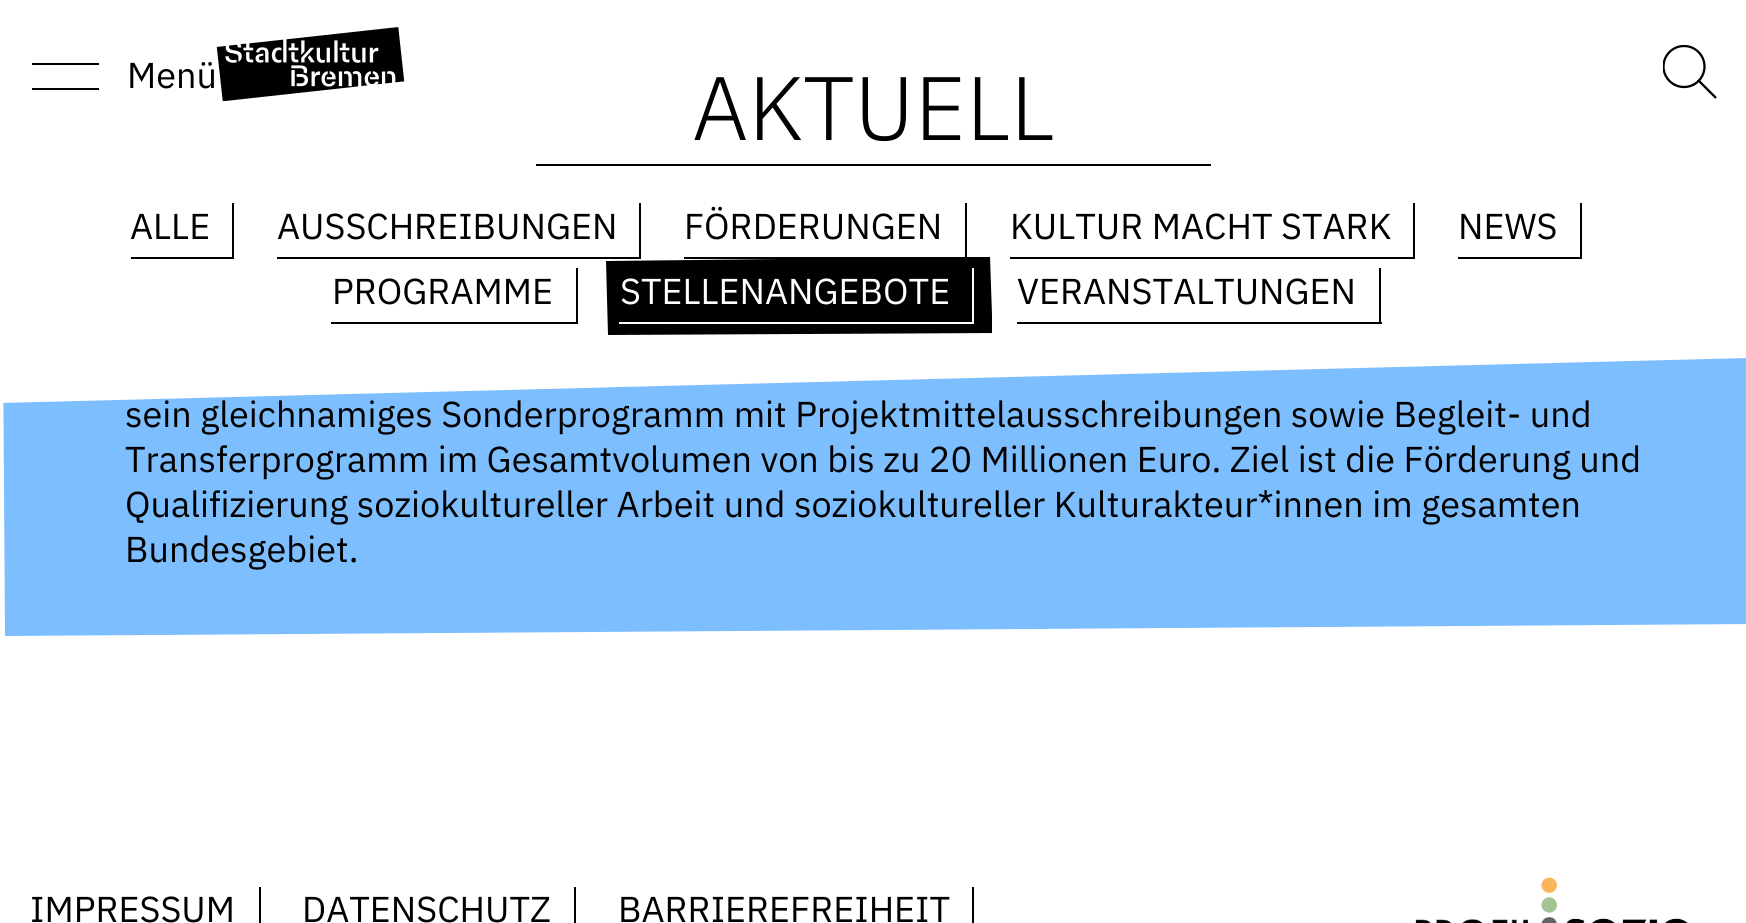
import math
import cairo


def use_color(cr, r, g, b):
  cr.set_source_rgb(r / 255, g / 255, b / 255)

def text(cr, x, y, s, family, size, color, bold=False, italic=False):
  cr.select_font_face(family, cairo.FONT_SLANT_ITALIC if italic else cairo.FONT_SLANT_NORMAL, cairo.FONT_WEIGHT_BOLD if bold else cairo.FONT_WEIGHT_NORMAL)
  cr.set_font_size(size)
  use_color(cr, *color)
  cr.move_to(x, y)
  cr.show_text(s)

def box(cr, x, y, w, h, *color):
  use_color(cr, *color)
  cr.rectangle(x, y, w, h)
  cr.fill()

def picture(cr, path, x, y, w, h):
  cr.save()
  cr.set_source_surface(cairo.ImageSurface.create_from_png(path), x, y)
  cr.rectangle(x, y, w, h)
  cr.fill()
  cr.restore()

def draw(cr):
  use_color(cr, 255, 255, 255)
  cr.paint()
  use_color(cr, 125, 190, 255)
  cr.new_path()
  cr.move_to(-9, -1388)
  cr.line_to(1741, -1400)
  cr.line_to(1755, 624)
  cr.line_to(5, 636)
  cr.close_path()
  cr.fill()
  box(cr, 259, 887, 2, 36, 0, 0, 0)
  box(cr, 574, 887, 2, 36, 0, 0, 0)
  box(cr, 972, 887, 2, 36, 0, 0, 0)
  picture(cr, "img_02.png", 1415, 877, 273, 46)
  text(cr, 125, 427, "sein gleichnamiges Sonderprogramm mit Projektmittelausschreibungen sowie Begleit- und", "IBM Plex Sans", 36, (0, 0, 0))
  use_color(cr, 255, 255, 255)
  cr.new_path()
  cr.move_to(0, -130)
  cr.line_to(0, 403)
  cr.line_to(1746, 358)
  cr.line_to(1746, -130)
  cr.close_path()
  cr.fill()
  box(cr, 684, 257, 264, 2, 0, 0, 0)
  box(cr, 965, 203, 2, 56, 0, 0, 0)
  box(cr, 639, 203, 2, 56, 0, 0, 0)
  box(cr, 277, 257, 364, 2, 0, 0, 0)
  cr.new_path()
  cr.move_to(606, 261)
  cr.line_to(608, 335)
  cr.line_to(992, 333)
  cr.line_to(992, 315)
  cr.line_to(990, 257)
  cr.line_to(948, 257)
  cr.close_path()
  cr.fill()
  text(cr, 620, 304, "STELLENANGEBOTE", "IBM Plex Sans", 36, (255, 255, 255))
  box(cr, 972, 268, 2, 56, 255, 255, 255)
  box(cr, 619, 322, 355, 2, 255, 255, 255)
  text(cr, 1017, 304, "VERANSTALTUNGEN", "IBM Plex Sans", 36, (0, 0, 0))
  box(cr, 1379, 268, 2, 56, 0, 0, 0)
  box(cr, 1017, 322, 365, 2, 0, 0, 0)
  text(cr, 332, 304, "PROGRAMME", "IBM Plex Sans", 36, (0, 0, 0))
  box(cr, 576, 268, 2, 56, 0, 0, 0)
  box(cr, 331, 322, 247, 2, 0, 0, 0)
  text(cr, 1458, 239, "NEWS", "IBM Plex Sans", 36, (0, 0, 0))
  box(cr, 1580, 203, 2, 56, 0, 0, 0)
  box(cr, 1458, 257, 124, 2, 0, 0, 0)
  text(cr, 1010, 239, "KULTUR MACHT STARK", "IBM Plex Sans", 36, (0, 0, 0))
  box(cr, 1413, 203, 2, 56, 0, 0, 0)
  box(cr, 1010, 257, 405, 2, 0, 0, 0)
  text(cr, 684, 239, "FÖRDERUNGEN", "IBM Plex Sans", 36, (0, 0, 0))
  text(cr, 277, 239, "AUSSCHREIBUNGEN", "IBM Plex Sans", 36, (0, 0, 0))
  text(cr, 130, 239, "ALLE", "IBM Plex Sans", 36, (0, 0, 0))
  box(cr, 232, 203, 2, 56, 0, 0, 0)
  box(cr, 131, 257, 103, 2, 0, 0, 0)
  text(cr, 692, 140, "AKTUELL", "IBM Plex Sans Light", 90, (0, 0, 0))
  box(cr, 536, 164, 675, 2, 0, 0, 0)
  cr.save()
  cr.rectangle(1663, 45, 54, 54)
  cr.clip()
  cr.arc(1684, 66.5, 20.5, 0, 2 * math.pi)
  cr.set_line_width(2.3)
  cr.stroke()
  cr.restore()
  cr.new_path()
  cr.move_to(1698, 80)
  cr.line_to(1716, 98)
  cr.set_line_width(2.3)
  cr.stroke()
  text(cr, 127, 88, "Menü", "IBM Plex Sans", 36, (0, 0, 0))
  box(cr, 32, 88, 67, 2, 0, 0, 0)
  box(cr, 32, 63, 67, 2, 0, 0, 0)
  picture(cr, "img_01.png", 216, 27, 189, 74)
  text(cr, 125, 472, "Transferprogramm im Gesamtvolumen von bis zu 20 Millionen Euro. Ziel ist die Förderung und", "IBM Plex Sans", 36, (0, 0, 0))
  text(cr, 125, 517, "Qualifizierung soziokultureller Arbeit und soziokultureller Kulturakteur*innen im gesamten", "IBM Plex Sans", 36, (0, 0, 0))
  text(cr, 125, 562, "Bundesgebiet.", "IBM Plex Sans", 36, (0, 0, 0))
  text(cr, 30, 922, "IMPRESSUM", "IBM Plex Sans", 36, (0, 0, 0))
  text(cr, 302, 922, "DATENSCHUTZ", "IBM Plex Sans", 36, (0, 0, 0))
  text(cr, 618, 922, "BARRIEREFREIHEIT", "IBM Plex Sans", 36, (0, 0, 0))


surface = cairo.ImageSurface(cairo.FORMAT_RGB24, 1746, 923)
cr = cairo.Context(surface)
options = cairo.FontOptions()
options.set_hint_metrics(cairo.HINT_METRICS_OFF)
options.set_hint_style(cairo.HINT_STYLE_NONE)
cr.set_font_options(options)
cr.set_miter_limit(4)
draw(cr)
surface.write_to_png("out.png")
